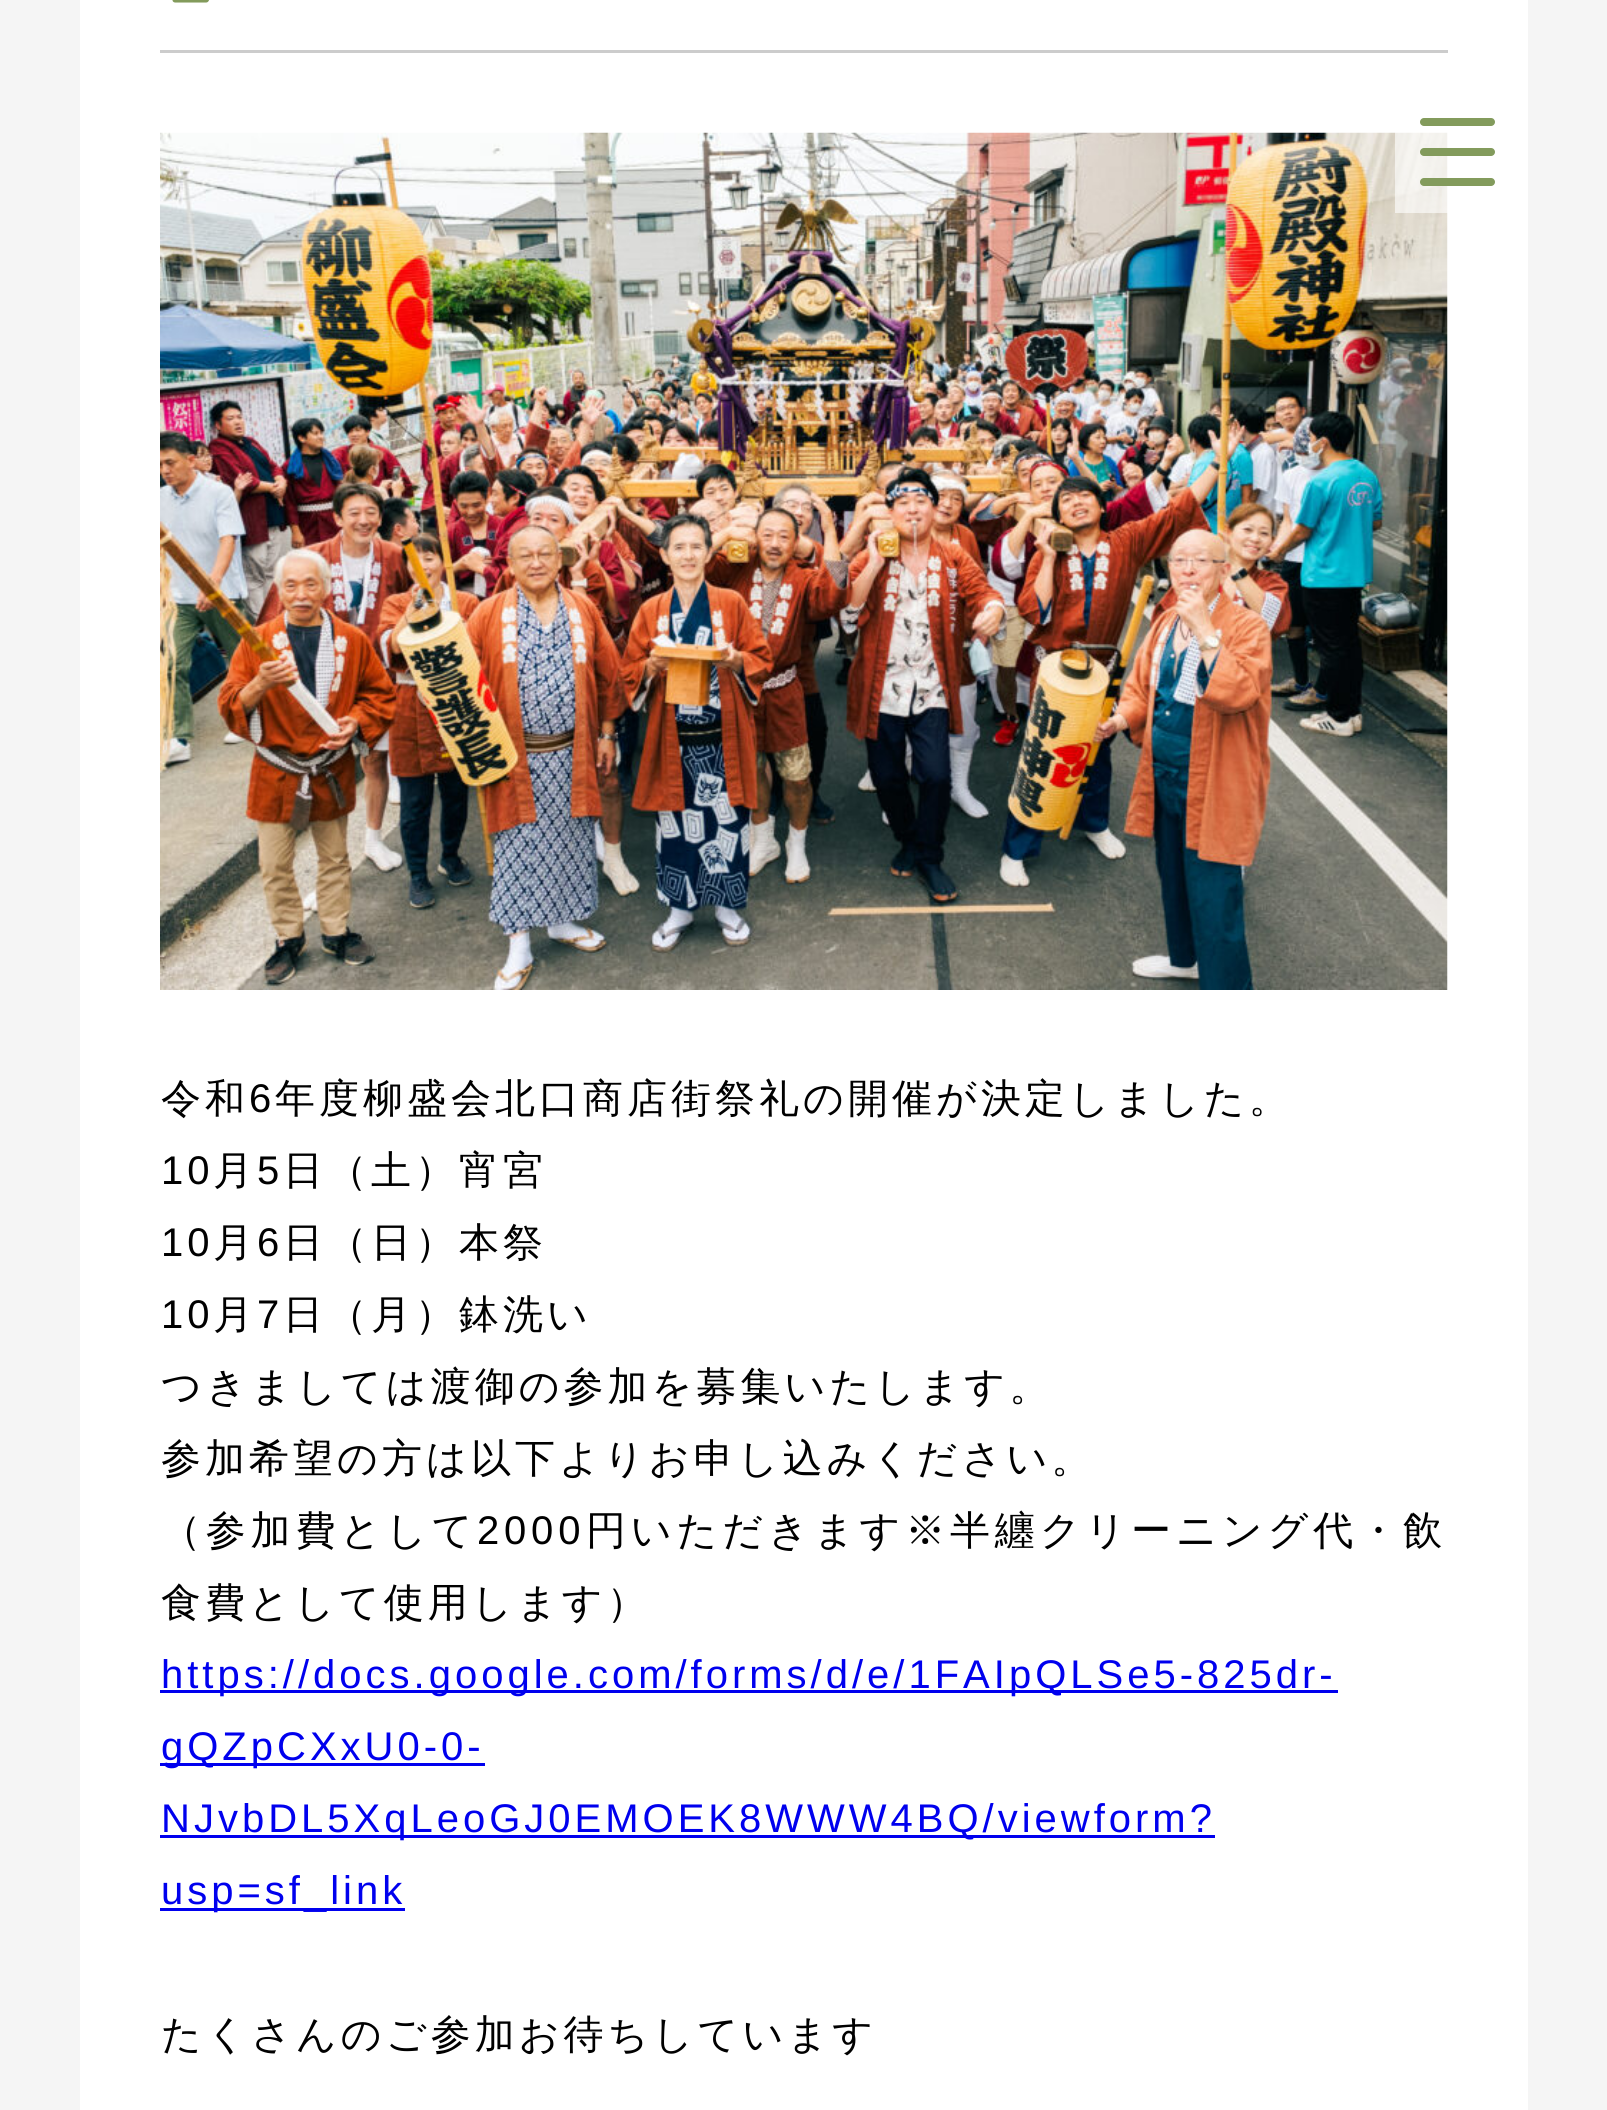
import math
import cairo


def use_color(cr, r, g, b):
  cr.set_source_rgb(r / 255, g / 255, b / 255)

def spaced_text(cr, x, y, s, letter, word):
  cr.move_to(x, y)
  for ch in s:
    cr.show_text(ch)
    cr.rel_move_to(letter + word * (ch == ' '), 0)

def box(cr, x, y, w, h, *color):
  use_color(cr, *color)
  cr.rectangle(x, y, w, h)
  cr.fill()

def round_rect(cr, x, y, w, h, r):
  cr.new_sub_path()
  for i, (u, v) in enumerate([(x + w - r, y + h - r), (x + r, y + h - r), (x + r, y + r), (x + w - r, y + r)]):
    cr.arc(u, v, r, i * math.pi / 2, (i + 1) * math.pi / 2)
  cr.close_path()

def picture(cr, path, x, y, w, h):
  cr.save()
  cr.set_source_surface(cairo.ImageSurface.create_from_png(path), x, y)
  cr.rectangle(x, y, w, h)
  cr.fill()
  cr.restore()

def draw(cr):
  use_color(cr, 245, 245, 245)
  cr.paint()
  box(cr, 80, 0, 1448, 2110, 255, 255, 255)
  picture(cr, "img_02.png", 160, 132, 1288, 858)
  cr.set_source_rgba(1, 1, 1, 0.6)
  cr.rectangle(1395, 132, 53, 81)
  cr.fill()
  use_color(cr, 131, 155, 92)
  round_rect(cr, 1420, 118, 75, 8, 4)
  cr.fill()
  round_rect(cr, 1420, 148, 75, 8, 4)
  cr.fill()
  round_rect(cr, 1420, 178, 75, 8, 4)
  cr.fill()
  box(cr, 160, 50, 1288, 3, 204, 204, 204)
  picture(cr, "img_01.png", 172, 0, 37, 3)
  box(cr, 160, 1690, 1178, 3, 0, 0, 238)
  box(cr, 160, 1763, 325, 3, 0, 0, 238)
  box(cr, 160, 1835, 1055, 3, 0, 0, 238)
  box(cr, 160, 1908, 245, 3, 0, 0, 238)
  cr.select_font_face("WenQuanYi Zen Hei Medium")
  cr.set_font_size(40)
  use_color(cr, 0, 0, 0)
  spaced_text(cr, 161, 1112, "令和", 4, 0)
  cr.select_font_face("Liberation Sans")
  spaced_text(cr, 249, 1112, "6", 4, 0)
  cr.select_font_face("WenQuanYi Zen Hei Medium")
  spaced_text(cr, 275, 1112, "年度柳盛会北口商店街祭礼の開催が決定しました。", 4, 0)
  cr.select_font_face("Liberation Sans")
  spaced_text(cr, 161, 1184, "10", 4, 0)
  cr.select_font_face("WenQuanYi Zen Hei Medium")
  spaced_text(cr, 213, 1184, "月", 4, 0)
  cr.select_font_face("Liberation Sans")
  spaced_text(cr, 257, 1184, "5", 4, 0)
  cr.select_font_face("WenQuanYi Zen Hei Medium")
  spaced_text(cr, 283, 1184, "日（土）宵宮", 4, 0)
  cr.select_font_face("Liberation Sans")
  spaced_text(cr, 161, 1256, "10", 4, 0)
  cr.select_font_face("WenQuanYi Zen Hei Medium")
  spaced_text(cr, 213, 1256, "月", 4, 0)
  cr.select_font_face("Liberation Sans")
  spaced_text(cr, 257, 1256, "6", 4, 0)
  cr.select_font_face("WenQuanYi Zen Hei Medium")
  spaced_text(cr, 283, 1256, "日（日）本祭", 4, 0)
  cr.select_font_face("Liberation Sans")
  spaced_text(cr, 161, 1328, "10", 4, 0)
  cr.select_font_face("WenQuanYi Zen Hei Medium")
  spaced_text(cr, 213, 1328, "月", 4, 0)
  cr.select_font_face("Liberation Sans")
  spaced_text(cr, 257, 1328, "7", 4, 0)
  cr.select_font_face("WenQuanYi Zen Hei Medium")
  spaced_text(cr, 283, 1328, "日（月）鉢洗い", 4, 0)
  spaced_text(cr, 161, 1400, "つきましては渡御の参加を募集いたします。", 4, 0)
  spaced_text(cr, 161, 1472, "参加希望の方は以下よりお申し込みください。", 4, 0)
  spaced_text(cr, 161, 1544, "（参加費として", 4.8, 0)
  cr.select_font_face("Liberation Sans")
  spaced_text(cr, 477, 1544, "2000", 4.8, 0)
  cr.select_font_face("WenQuanYi Zen Hei Medium")
  spaced_text(cr, 586, 1544, "円いただきます※半纏クリーニング代・飲", 4.8, 0)
  spaced_text(cr, 161, 1616, "食費として使用します）", 4, 0)
  cr.select_font_face("Liberation Sans")
  use_color(cr, 0, 0, 238)
  spaced_text(cr, 161, 1688, "https://docs.google.com/forms/d/e/1FAIpQLSe5-825dr-", 4, 0)
  spaced_text(cr, 161, 1760, "gQZpCXxU0-0-", 4, 0)
  spaced_text(cr, 161, 1832, "NJvbDL5XqLeoGJ0EMOEK8WWW4BQ/viewform?", 4, 0)
  spaced_text(cr, 161, 1904, "usp=sf_link", 4, 0)
  cr.select_font_face("WenQuanYi Zen Hei Medium")
  use_color(cr, 0, 0, 0)
  spaced_text(cr, 161, 2048, "たくさんのご参加お待ちしています", 4, 0)


surface = cairo.ImageSurface(cairo.FORMAT_RGB24, 1607, 2110)
cr = cairo.Context(surface)
options = cairo.FontOptions()
options.set_hint_metrics(cairo.HINT_METRICS_OFF)
options.set_hint_style(cairo.HINT_STYLE_NONE)
cr.set_font_options(options)
cr.set_miter_limit(4)
draw(cr)
surface.write_to_png("out.png")
